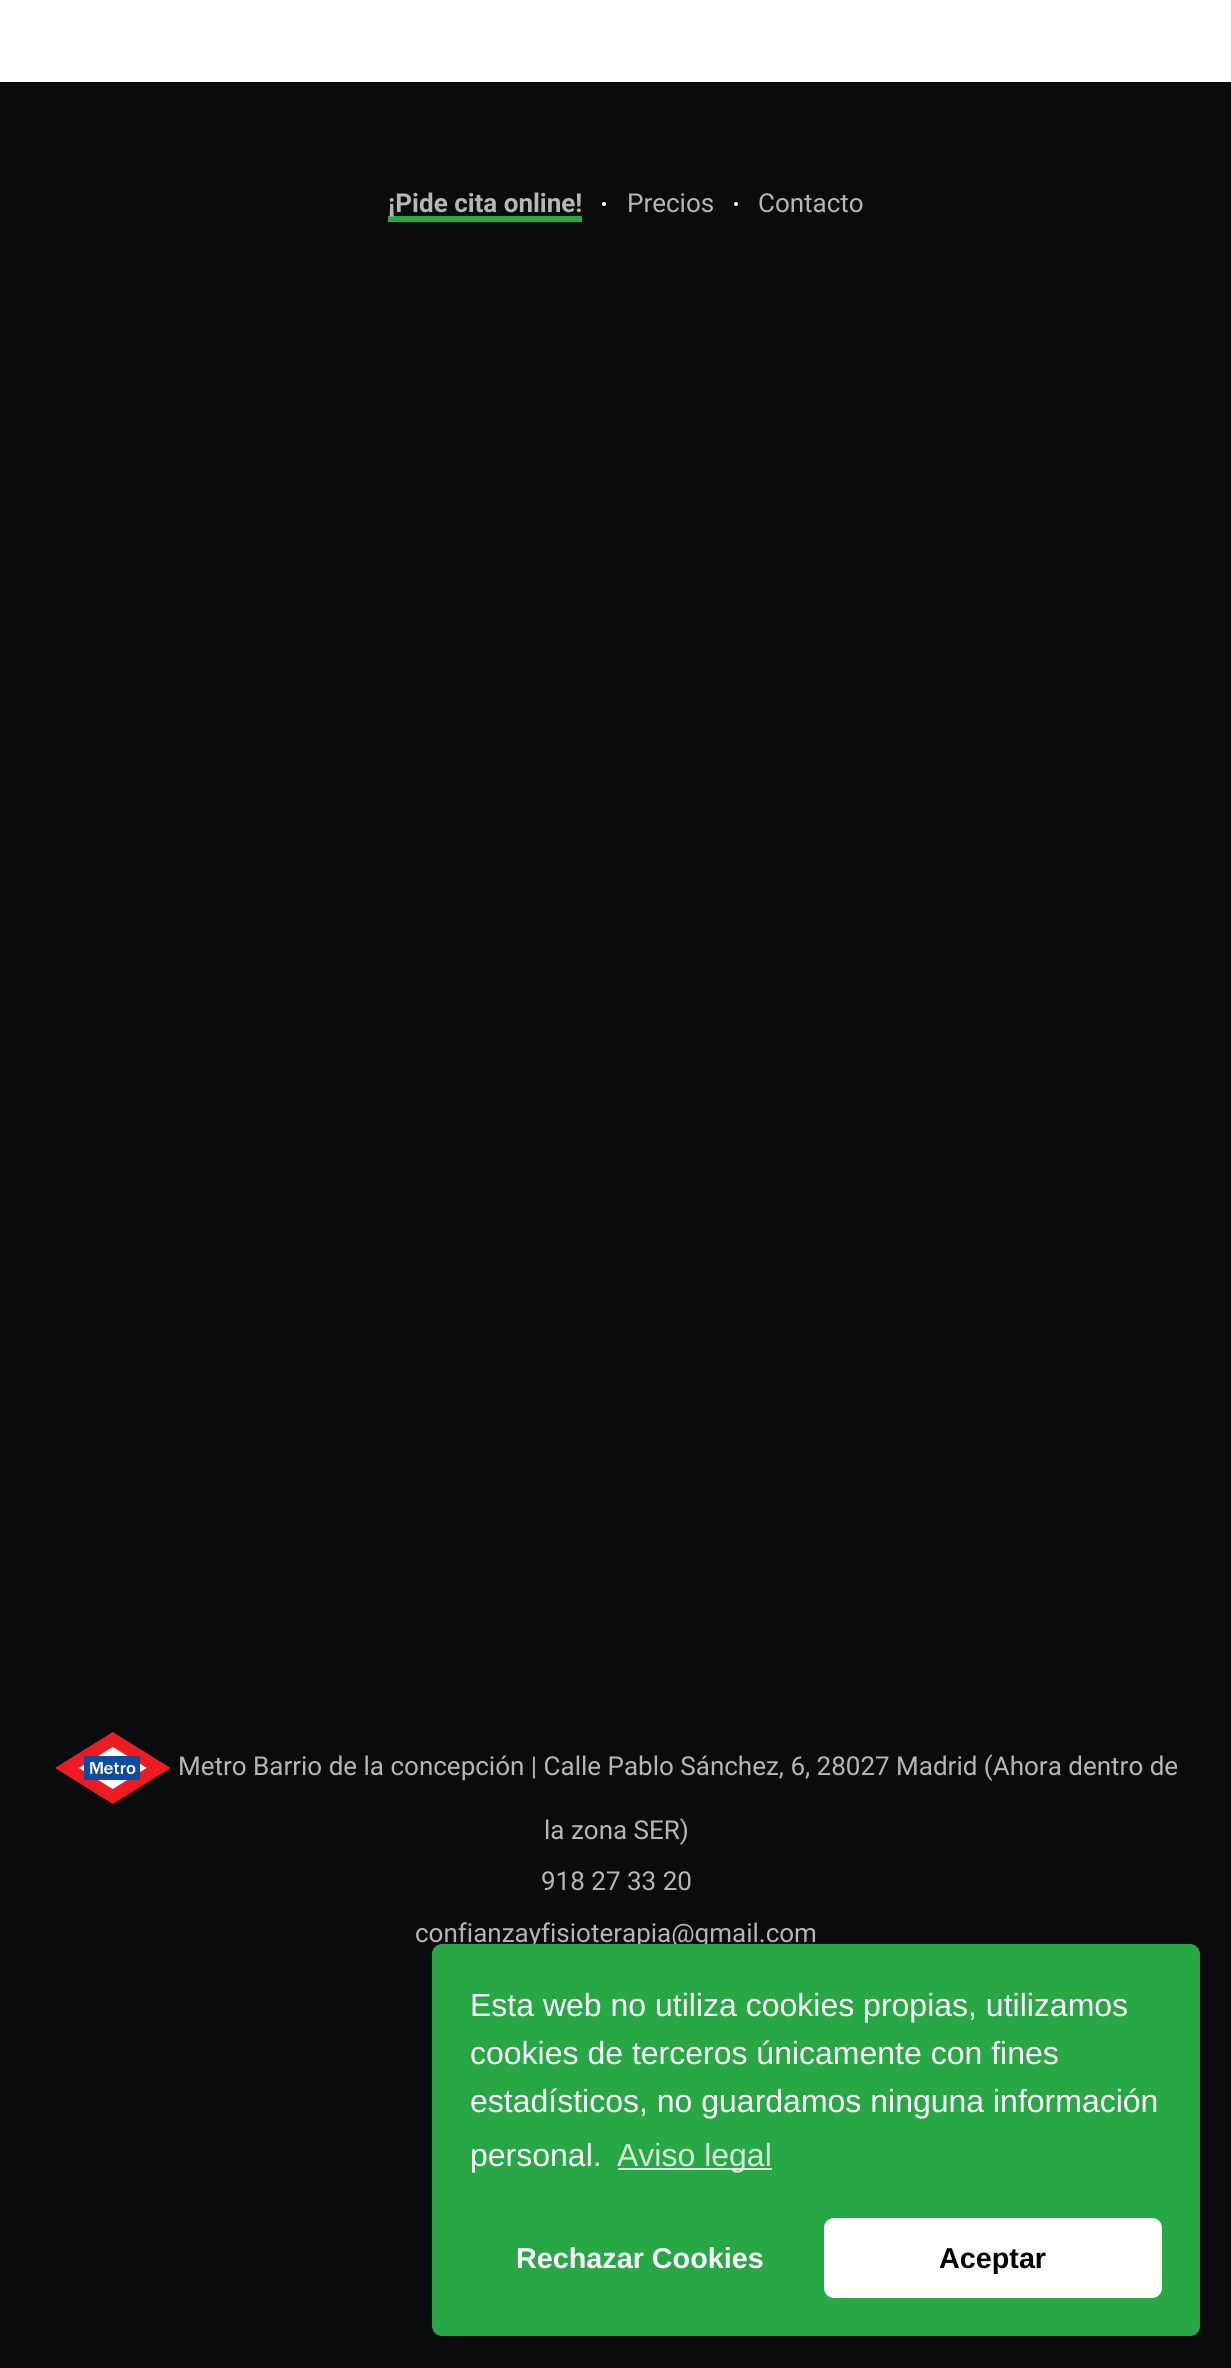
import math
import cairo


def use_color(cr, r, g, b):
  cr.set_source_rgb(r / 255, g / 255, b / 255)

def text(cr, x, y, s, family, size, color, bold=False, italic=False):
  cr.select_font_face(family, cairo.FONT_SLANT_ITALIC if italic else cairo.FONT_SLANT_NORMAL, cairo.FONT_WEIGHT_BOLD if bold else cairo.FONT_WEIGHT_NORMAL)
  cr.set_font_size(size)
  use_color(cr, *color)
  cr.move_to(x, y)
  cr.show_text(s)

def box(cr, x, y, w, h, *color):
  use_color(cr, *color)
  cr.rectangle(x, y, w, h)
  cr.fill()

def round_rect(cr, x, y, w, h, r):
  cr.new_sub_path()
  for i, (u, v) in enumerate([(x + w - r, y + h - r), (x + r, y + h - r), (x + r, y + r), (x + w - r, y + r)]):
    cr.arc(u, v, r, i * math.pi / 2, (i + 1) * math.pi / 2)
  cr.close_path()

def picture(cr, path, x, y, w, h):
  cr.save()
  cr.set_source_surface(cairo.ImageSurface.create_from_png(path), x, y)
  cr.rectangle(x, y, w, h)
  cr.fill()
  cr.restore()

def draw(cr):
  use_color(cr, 255, 255, 255)
  cr.paint()
  box(cr, 0, 82, 1231, 2286, 10, 11, 12)
  box(cr, 388, 216, 194, 6, 40, 167, 69)
  use_color(cr, 255, 255, 255)
  cr.arc(604, 204, 2, 0, 2 * math.pi)
  cr.fill()
  cr.arc(736, 204, 2, 0, 2 * math.pi)
  cr.fill()
  picture(cr, "img_01.png", 55, 1732, 116, 72)
  text(cr, 388, 212, "¡Pide cita online!", "Roboto", 26, (182, 182, 182), bold=True)
  text(cr, 627, 212, "Precios", "Roboto", 26, (182, 182, 182))
  text(cr, 758, 212, "Contacto", "Roboto", 26, (182, 182, 182))
  text(cr, 178, 1775, "Metro Barrio de la concepción | Calle Pablo Sánchez, 6, 28027 Madrid (Ahora dentro de", "Roboto", 26, (182, 182, 182))
  text(cr, 544, 1839, "la zona SER)", "Roboto", 26, (182, 182, 182))
  text(cr, 541, 1890, "918 27 33 20", "Roboto", 26, (182, 182, 182))
  text(cr, 415, 1942, "confianzayfisioterapia@gmail.com", "Roboto", 26, (182, 182, 182))
  use_color(cr, 40, 167, 69)
  round_rect(cr, 432, 1944, 768, 392, 10)
  cr.fill()
  text(cr, 470, 2016, "Esta web no utiliza cookies propias, utilizamos", "Liberation Sans", 32, (255, 255, 255))
  text(cr, 470, 2064, "cookies de terceros únicamente con fines", "Liberation Sans", 32, (255, 255, 255))
  text(cr, 470, 2112, "estadísticos, no guardamos ninguna información", "Liberation Sans", 32, (255, 255, 255))
  text(cr, 470, 2166, "personal.", "Liberation Sans", 32, (255, 255, 255))
  box(cr, 618, 2168, 154, 2, 212, 237, 218)
  text(cr, 617, 2166, "Aviso legal", "Liberation Sans", 32, (212, 237, 218))
  text(cr, 516, 2268, "Rechazar Cookies", "Liberation Sans", 28.75, (255, 255, 255), bold=True)
  round_rect(cr, 824, 2218, 338, 80, 10)
  cr.fill()
  text(cr, 939, 2268, "Aceptar", "Liberation Sans", 28.75, (0, 0, 0), bold=True)


surface = cairo.ImageSurface(cairo.FORMAT_RGB24, 1231, 2368)
cr = cairo.Context(surface)
options = cairo.FontOptions()
options.set_hint_metrics(cairo.HINT_METRICS_OFF)
options.set_hint_style(cairo.HINT_STYLE_NONE)
cr.set_font_options(options)
cr.set_miter_limit(4)
draw(cr)
surface.write_to_png("out.png")
